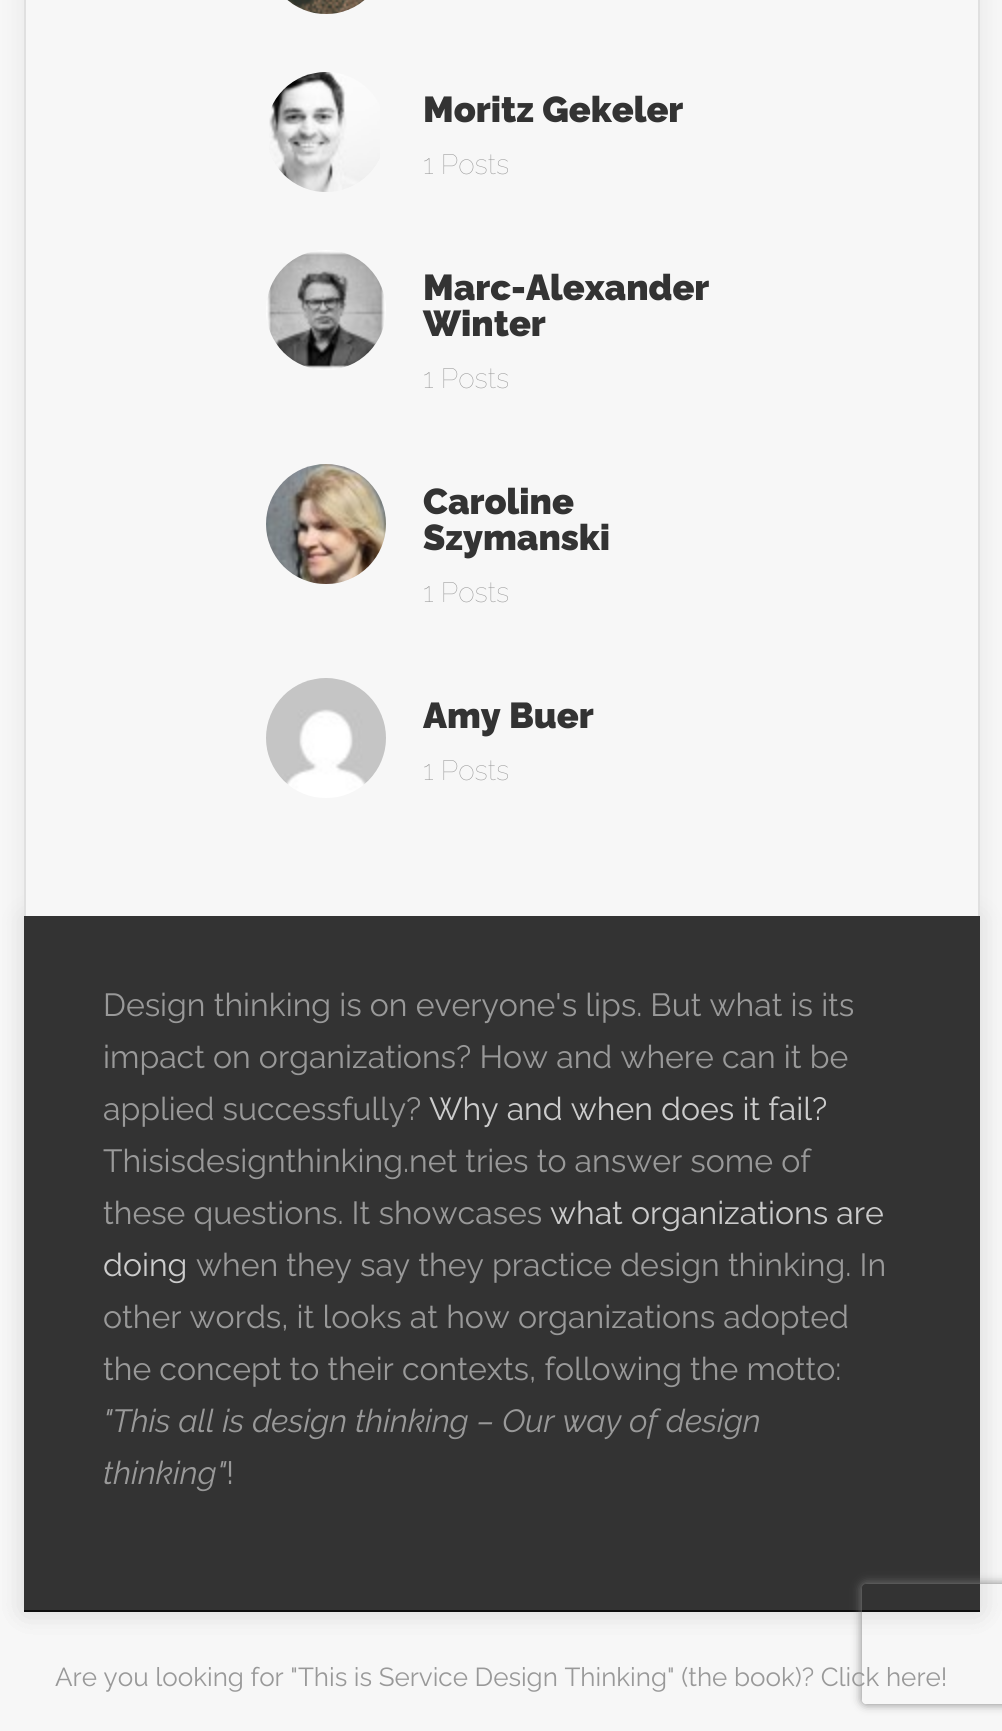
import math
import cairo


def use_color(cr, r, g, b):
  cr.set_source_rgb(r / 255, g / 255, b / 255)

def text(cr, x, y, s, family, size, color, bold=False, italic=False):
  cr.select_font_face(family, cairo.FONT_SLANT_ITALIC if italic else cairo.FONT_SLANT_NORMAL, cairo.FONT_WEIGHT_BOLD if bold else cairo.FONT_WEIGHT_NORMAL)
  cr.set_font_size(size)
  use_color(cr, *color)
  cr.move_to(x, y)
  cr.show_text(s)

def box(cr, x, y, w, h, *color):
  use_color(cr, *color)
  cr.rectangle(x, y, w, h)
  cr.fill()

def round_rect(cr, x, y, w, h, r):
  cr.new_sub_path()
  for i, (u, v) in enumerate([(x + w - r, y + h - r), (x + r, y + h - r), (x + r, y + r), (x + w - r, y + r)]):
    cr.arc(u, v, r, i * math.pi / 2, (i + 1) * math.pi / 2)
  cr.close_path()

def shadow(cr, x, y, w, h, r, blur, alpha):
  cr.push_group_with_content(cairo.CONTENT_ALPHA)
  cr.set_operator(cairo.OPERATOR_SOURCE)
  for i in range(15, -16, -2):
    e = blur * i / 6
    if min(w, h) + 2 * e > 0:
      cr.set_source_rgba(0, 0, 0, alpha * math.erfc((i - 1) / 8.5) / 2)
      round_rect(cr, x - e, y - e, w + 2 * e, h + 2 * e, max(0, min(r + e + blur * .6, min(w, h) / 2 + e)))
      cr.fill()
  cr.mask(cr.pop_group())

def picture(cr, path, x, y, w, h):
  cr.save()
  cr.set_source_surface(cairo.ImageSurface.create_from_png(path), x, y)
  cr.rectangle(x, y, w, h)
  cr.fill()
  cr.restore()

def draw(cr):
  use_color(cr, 247, 247, 247)
  cr.paint()
  use_color(cr, 0, 0, 0)
  shadow(cr, 24, -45, 956, 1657, 0, 15, 0.07)
  shadow(cr, 24, 916, 956, 696, 0, 15, 0.07)
  box(cr, 978, 0, 2, 916, 224, 224, 224)
  box(cr, 24, 0, 2, 916, 224, 224, 224)
  box(cr, 26, 0, 952, 916, 247, 247, 247)
  picture(cr, "img_01.png", 287, 0, 78, 14)
  picture(cr, "img_02.png", 269, 72, 111, 120)
  picture(cr, "img_03.png", 266, 250, 120, 120)
  picture(cr, "img_04.png", 266, 464, 120, 120)
  picture(cr, "img_05.png", 266, 678, 120, 120)
  box(cr, 24, 916, 956, 694, 51, 51, 51)
  box(cr, 24, 1610, 956, 2, 15, 15, 15)
  cr.save()
  cr.set_fill_rule(cairo.FILL_RULE_EVEN_ODD)
  cr.new_path()
  cr.move_to(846, 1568)
  cr.line_to(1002, 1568)
  cr.line_to(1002, 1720)
  cr.line_to(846, 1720)
  cr.close_path()
  cr.move_to(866, 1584)
  cr.line_to(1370, 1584)
  cr.curve_to(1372, 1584, 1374, 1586, 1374, 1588)
  cr.line_to(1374, 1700)
  cr.curve_to(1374, 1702, 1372, 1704, 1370, 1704)
  cr.line_to(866, 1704)
  cr.curve_to(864, 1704, 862, 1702, 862, 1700)
  cr.line_to(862, 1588)
  cr.curve_to(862, 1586, 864, 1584, 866, 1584)
  cr.close_path()
  cr.clip()
  use_color(cr, 128, 128, 128)
  shadow(cr, 862, 1584, 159, 120, 4, 5, 1)
  cr.restore()
  text(cr, 423, 122, "Moritz Gekeler", "Raleway Black", 36, (51, 51, 51))
  text(cr, 423, 174, "1 Posts", "Raleway Thin", 28, (153, 153, 153))
  text(cr, 423, 300, "Marc-Alexander", "Raleway Black", 36, (51, 51, 51))
  text(cr, 423, 336, "Winter", "Raleway Black", 36, (51, 51, 51))
  text(cr, 423, 388, "1 Posts", "Raleway Thin", 28, (153, 153, 153))
  text(cr, 423, 514, "Caroline", "Raleway Black", 36, (51, 51, 51))
  text(cr, 423, 550, "Szymanski", "Raleway Black", 36, (51, 51, 51))
  text(cr, 423, 602, "1 Posts", "Raleway Thin", 28, (153, 153, 153))
  text(cr, 423, 728, "Amy Buer", "Raleway Black", 36, (51, 51, 51))
  text(cr, 423, 780, "1 Posts", "Raleway Thin", 28, (153, 153, 153))
  text(cr, 103, 1016, "Design thinking is on everyone's lips. But what is its", "Raleway", 32, (153, 153, 153))
  text(cr, 103, 1068, "impact on organizations? How and where can it be", "Raleway", 32, (153, 153, 153))
  text(cr, 103, 1120, "applied successfully?", "Raleway", 32, (153, 153, 153))
  text(cr, 429, 1120, "Why and when does it fail?", "Raleway", 32, (204, 204, 204))
  text(cr, 103, 1172, "Thisisdesignthinking.net tries to answer some of", "Raleway", 32, (153, 153, 153))
  text(cr, 103, 1224, "these questions. It showcases", "Raleway", 32, (153, 153, 153))
  text(cr, 550, 1224, "what organizations are", "Raleway", 32, (204, 204, 204))
  text(cr, 103, 1276, "doing", "Raleway", 32, (204, 204, 204))
  text(cr, 196, 1276, "when they say they practice design thinking. In", "Raleway", 32, (153, 153, 153))
  text(cr, 103, 1328, "other words, it looks at how organizations adopted", "Raleway", 32, (153, 153, 153))
  text(cr, 103, 1380, "the concept to their contexts, following the motto:", "Raleway", 32, (153, 153, 153))
  text(cr, 103, 1432, "\"This all is design thinking – Our way of design", "Raleway", 32, (153, 153, 153), italic=True)
  text(cr, 103, 1484, "thinking\"", "Raleway", 32, (153, 153, 153), italic=True)
  text(cr, 226, 1484, "!", "Raleway", 32, (153, 153, 153))
  text(cr, 55, 1686, "Are you looking for \"This is Service Design Thinking\" (the book)? Click here!", "Raleway", 26, (153, 153, 153))


surface = cairo.ImageSurface(cairo.FORMAT_RGB24, 1002, 1731)
cr = cairo.Context(surface)
options = cairo.FontOptions()
options.set_hint_metrics(cairo.HINT_METRICS_OFF)
options.set_hint_style(cairo.HINT_STYLE_NONE)
cr.set_font_options(options)
cr.set_miter_limit(4)
draw(cr)
surface.write_to_png("out.png")
